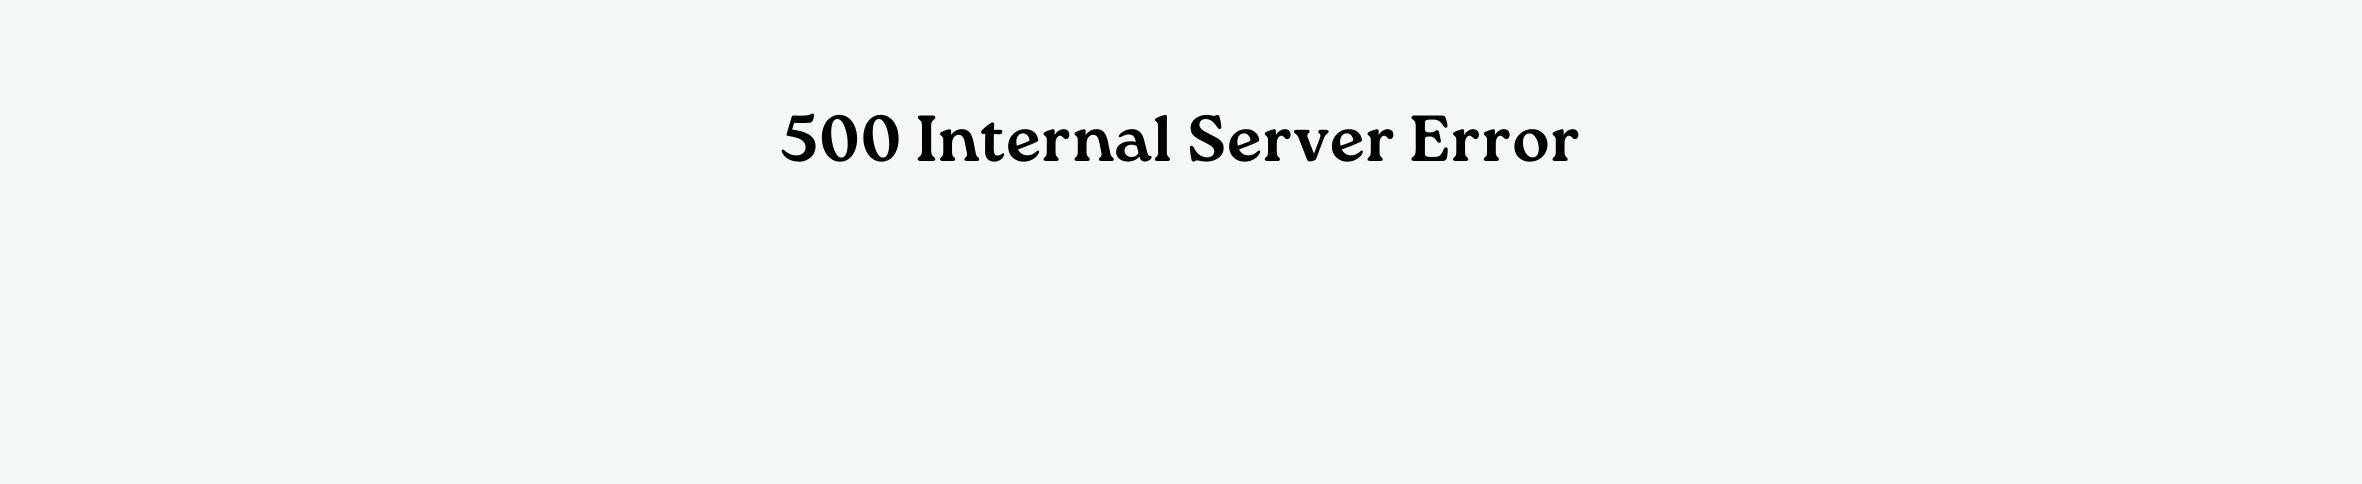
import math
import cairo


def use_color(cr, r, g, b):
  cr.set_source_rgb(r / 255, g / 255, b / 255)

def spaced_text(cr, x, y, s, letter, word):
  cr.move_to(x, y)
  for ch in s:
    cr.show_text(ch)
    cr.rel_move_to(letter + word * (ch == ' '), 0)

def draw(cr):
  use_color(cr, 244, 248, 248)
  cr.paint()
  cr.select_font_face("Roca", cairo.FONT_SLANT_NORMAL, cairo.FONT_WEIGHT_BOLD)
  cr.set_font_size(65)
  use_color(cr, 0, 0, 0)
  spaced_text(cr, 780, 161, "500 Internal Server Error", 0.6, 0)


surface = cairo.ImageSurface(cairo.FORMAT_RGB24, 2362, 484)
cr = cairo.Context(surface)
options = cairo.FontOptions()
options.set_hint_metrics(cairo.HINT_METRICS_OFF)
options.set_hint_style(cairo.HINT_STYLE_NONE)
cr.set_font_options(options)
cr.set_miter_limit(4)
draw(cr)
surface.write_to_png("out.png")
